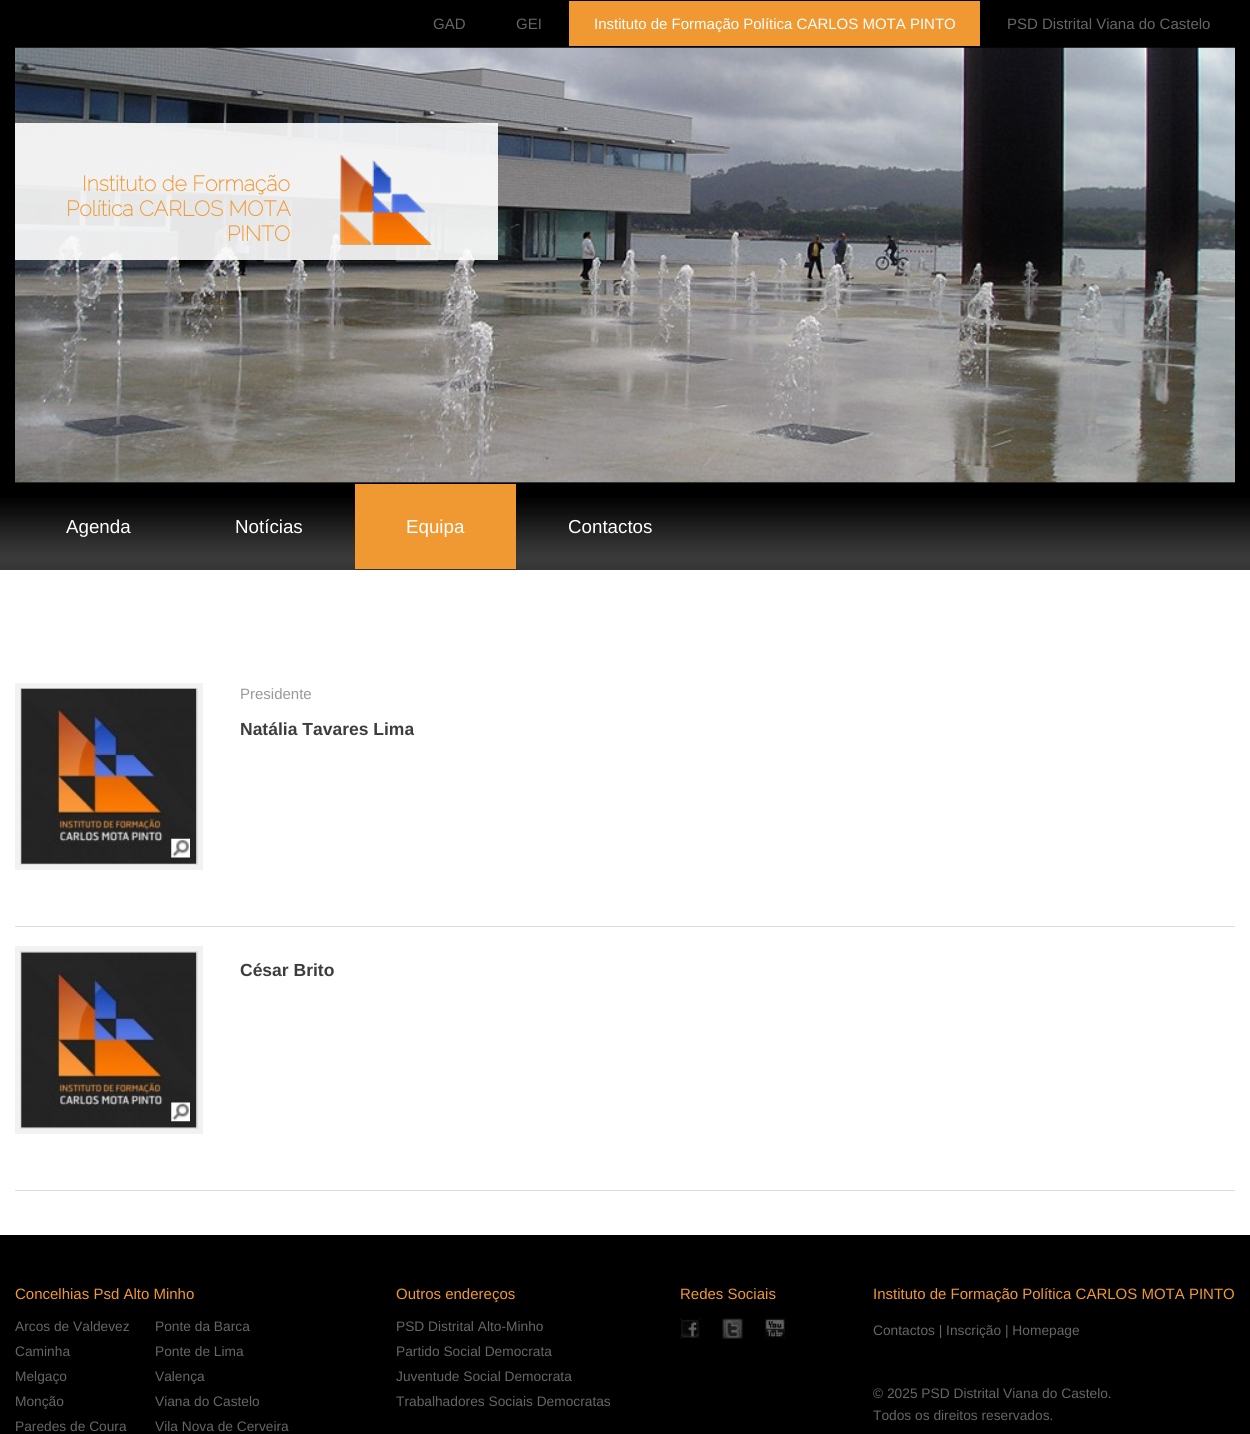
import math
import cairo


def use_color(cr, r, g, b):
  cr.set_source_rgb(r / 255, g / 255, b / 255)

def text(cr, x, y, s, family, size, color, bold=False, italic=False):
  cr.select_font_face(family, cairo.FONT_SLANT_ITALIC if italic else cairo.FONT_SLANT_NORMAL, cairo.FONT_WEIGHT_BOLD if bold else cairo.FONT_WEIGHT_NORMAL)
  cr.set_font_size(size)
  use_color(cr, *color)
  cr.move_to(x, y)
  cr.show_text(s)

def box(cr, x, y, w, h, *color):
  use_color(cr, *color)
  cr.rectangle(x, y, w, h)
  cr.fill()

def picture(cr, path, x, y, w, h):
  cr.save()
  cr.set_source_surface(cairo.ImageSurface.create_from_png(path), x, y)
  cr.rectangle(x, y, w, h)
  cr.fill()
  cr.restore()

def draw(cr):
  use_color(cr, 0, 0, 0)
  cr.paint()
  picture(cr, "img_01.png", 0, 498, 1250, 72)
  box(cr, 569, 1, 411, 45, 240, 152, 50)
  box(cr, 15, 482, 1220, 1, 17, 17, 17)
  picture(cr, "img_02.png", 15, 47, 1220, 436)
  cr.set_source_rgba(1, 1, 1, 0.9)
  cr.rectangle(15, 123, 483, 137)
  cr.fill()
  picture(cr, "img_03.png", 339, 154, 93, 91)
  box(cr, 355, 484, 161, 85, 240, 152, 50)
  box(cr, 0, 570, 1250, 665, 255, 255, 255)
  box(cr, 15, 683, 188, 187, 242, 242, 242)
  cr.rectangle(20.5, 688.5, 177, 176)
  use_color(cr, 221, 221, 221)
  cr.set_line_width(1)
  cr.stroke()
  picture(cr, "img_04.png", 21, 688, 176, 176)
  picture(cr, "img_05.png", 171, 838, 19, 20)
  box(cr, 15, 926, 1220, 1, 221, 221, 221)
  box(cr, 15, 946, 188, 188, 242, 242, 242)
  cr.rectangle(20.5, 951.5, 177, 177)
  use_color(cr, 221, 221, 221)
  cr.stroke()
  picture(cr, "img_06.png", 21, 952, 176, 176)
  picture(cr, "img_07.png", 171, 1102, 19, 20)
  box(cr, 15, 1190, 1220, 1, 221, 221, 221)
  picture(cr, "img_08.png", 680, 1318, 20, 21)
  picture(cr, "img_09.png", 722, 1318, 21, 21)
  picture(cr, "img_10.png", 765, 1318, 20, 21)
  text(cr, 433, 29, "GAD", "Liberation Sans", 15, (102, 102, 102))
  text(cr, 516, 29, "GEI", "Liberation Sans", 15, (102, 102, 102))
  text(cr, 594, 29, "Instituto de Formação Política CARLOS MOTA PINTO", "Liberation Sans", 15, (255, 255, 255))
  text(cr, 1007, 29, "PSD Distrital Viana do Castelo", "Liberation Sans", 15, (102, 102, 102))
  text(cr, 82, 191, "Instituto de Formação", "Raleway", 21.25, (240, 152, 50), bold=True)
  text(cr, 66, 216, "Política CARLOS MOTA", "Raleway", 21.25, (240, 152, 50), bold=True)
  text(cr, 227, 241, "PINTO", "Raleway", 21.25, (240, 152, 50), bold=True)
  text(cr, 66, 533, "Agenda", "Liberation Sans", 18.75, (255, 255, 255))
  text(cr, 235, 533, "Notícias", "Liberation Sans", 18.75, (255, 255, 255))
  text(cr, 406, 533, "Equipa", "Liberation Sans", 18.75, (255, 255, 255))
  text(cr, 568, 533, "Contactos", "Liberation Sans", 18.75, (255, 255, 255))
  text(cr, 240, 699, "Presidente", "Liberation Sans", 15, (153, 153, 153))
  text(cr, 240, 735, "Natália Tavares Lima", "Liberation Sans", 17.5, (61, 61, 61), bold=True)
  text(cr, 240, 976, "César Brito", "Liberation Sans", 17.5, (61, 61, 61), bold=True)
  text(cr, 15, 1299, "Concelhias Psd Alto Minho", "Liberation Sans", 15, (240, 152, 50))
  text(cr, 15, 1331, "Arcos de Valdevez", "Liberation Sans", 13.75, (102, 102, 102))
  text(cr, 15, 1356, "Caminha", "Liberation Sans", 13.75, (102, 102, 102))
  text(cr, 15, 1381, "Melgaço", "Liberation Sans", 13.75, (102, 102, 102))
  text(cr, 15, 1406, "Monção", "Liberation Sans", 13.75, (102, 102, 102))
  text(cr, 15, 1431, "Paredes de Coura", "Liberation Sans", 13.75, (102, 102, 102))
  text(cr, 155, 1331, "Ponte da Barca", "Liberation Sans", 13.75, (102, 102, 102))
  text(cr, 155, 1356, "Ponte de Lima", "Liberation Sans", 13.75, (102, 102, 102))
  text(cr, 155, 1381, "Valença", "Liberation Sans", 13.75, (102, 102, 102))
  text(cr, 155, 1406, "Viana do Castelo", "Liberation Sans", 13.75, (102, 102, 102))
  text(cr, 155, 1431, "Vila Nova de Cerveira", "Liberation Sans", 13.75, (102, 102, 102))
  text(cr, 396, 1299, "Outros endereços", "Liberation Sans", 15, (240, 152, 50))
  text(cr, 396, 1331, "PSD Distrital Alto-Minho", "Liberation Sans", 13.75, (102, 102, 102))
  text(cr, 396, 1356, "Partido Social Democrata", "Liberation Sans", 13.75, (102, 102, 102))
  text(cr, 396, 1381, "Juventude Social Democrata", "Liberation Sans", 13.75, (102, 102, 102))
  text(cr, 396, 1406, "Trabalhadores Sociais Democratas", "Liberation Sans", 13.75, (102, 102, 102))
  text(cr, 680, 1299, "Redes Sociais", "Liberation Sans", 15, (240, 152, 50))
  text(cr, 873, 1299, "Instituto de Formação Política CARLOS MOTA PINTO", "Liberation Sans", 15, (240, 152, 50))
  text(cr, 873, 1335, "Contactos | Inscrição | Homepage", "Liberation Sans", 13.75, (102, 102, 102))
  text(cr, 873, 1398, "© 2025 PSD Distrital Viana do Castelo.", "Liberation Sans", 13.75, (102, 102, 102))
  text(cr, 873, 1420, "Todos os direitos reservados.", "Liberation Sans", 13.75, (102, 102, 102))


surface = cairo.ImageSurface(cairo.FORMAT_RGB24, 1250, 1434)
cr = cairo.Context(surface)
options = cairo.FontOptions()
options.set_hint_metrics(cairo.HINT_METRICS_OFF)
options.set_hint_style(cairo.HINT_STYLE_NONE)
cr.set_font_options(options)
cr.set_miter_limit(4)
draw(cr)
surface.write_to_png("out.png")
